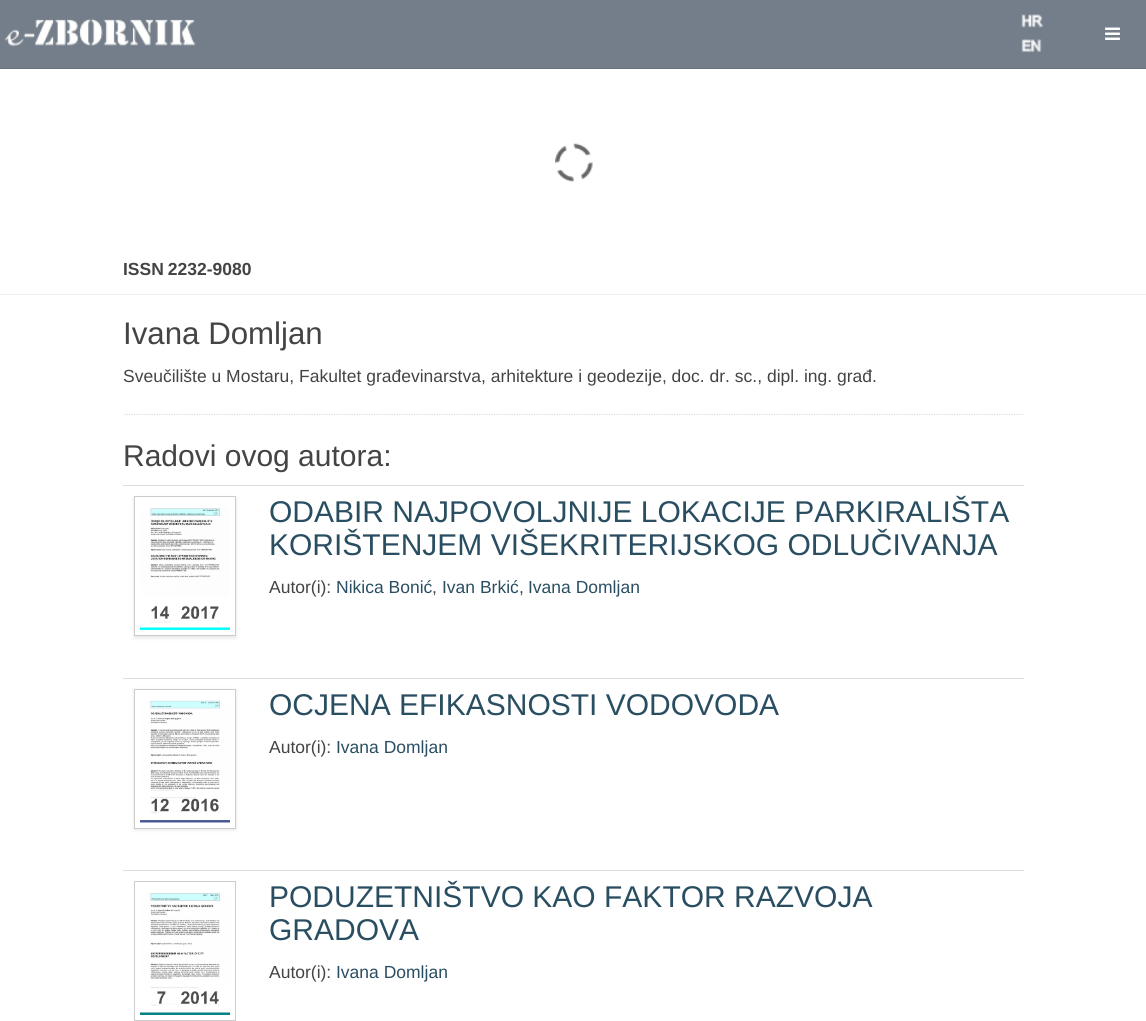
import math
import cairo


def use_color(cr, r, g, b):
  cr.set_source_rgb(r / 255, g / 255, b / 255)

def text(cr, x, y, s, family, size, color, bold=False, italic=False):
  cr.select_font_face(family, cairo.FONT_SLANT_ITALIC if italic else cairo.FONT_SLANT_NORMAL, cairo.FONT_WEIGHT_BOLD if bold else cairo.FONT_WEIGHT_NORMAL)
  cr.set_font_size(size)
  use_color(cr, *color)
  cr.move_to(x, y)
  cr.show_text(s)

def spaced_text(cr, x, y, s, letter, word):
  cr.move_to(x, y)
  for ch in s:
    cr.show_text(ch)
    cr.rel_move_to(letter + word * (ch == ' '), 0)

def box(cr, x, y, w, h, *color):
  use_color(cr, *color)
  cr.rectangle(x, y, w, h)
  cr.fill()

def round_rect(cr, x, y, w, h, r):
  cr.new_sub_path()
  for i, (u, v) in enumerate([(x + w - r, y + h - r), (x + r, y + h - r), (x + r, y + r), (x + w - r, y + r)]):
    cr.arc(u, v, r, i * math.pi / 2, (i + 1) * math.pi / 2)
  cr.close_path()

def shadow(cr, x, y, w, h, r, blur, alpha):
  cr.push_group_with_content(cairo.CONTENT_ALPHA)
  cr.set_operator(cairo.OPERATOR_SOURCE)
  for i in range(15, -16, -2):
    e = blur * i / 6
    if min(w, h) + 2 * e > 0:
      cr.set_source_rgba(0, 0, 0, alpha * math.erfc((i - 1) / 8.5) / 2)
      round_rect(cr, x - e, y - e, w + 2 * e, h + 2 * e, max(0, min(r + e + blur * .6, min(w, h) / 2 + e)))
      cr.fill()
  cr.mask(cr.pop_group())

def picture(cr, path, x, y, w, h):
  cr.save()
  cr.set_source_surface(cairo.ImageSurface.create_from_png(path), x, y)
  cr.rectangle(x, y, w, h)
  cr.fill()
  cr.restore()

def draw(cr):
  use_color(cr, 255, 255, 255)
  cr.paint()
  picture(cr, "img_01.png", 555, 143, 38, 39)
  box(cr, 0, 0, 1146, 68, 115, 126, 138)
  box(cr, 0, 68, 1146, 1, 103, 113, 124)
  picture(cr, "img_02.png", 4, 18, 192, 29)
  picture(cr, "img_03.png", 1021, 14, 23, 14)
  picture(cr, "img_04.png", 1021, 39, 21, 14)
  picture(cr, "img_05.png", 1105, 27, 15, 13)
  box(cr, 0, 294, 1146, 1, 238, 238, 238)
  cr.new_path()
  cr.move_to(124, 414.5)
  cr.line_to(1024, 414.5)
  use_color(cr, 222, 222, 222)
  cr.set_line_width(1.2)
  cr.set_dash([1.25, 1.25])
  cr.stroke()
  cr.save()
  cr.set_fill_rule(cairo.FILL_RULE_EVEN_ODD)
  cr.new_path()
  cr.move_to(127, 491)
  cr.line_to(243, 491)
  cr.line_to(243, 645)
  cr.line_to(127, 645)
  cr.close_path()
  cr.move_to(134, 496)
  cr.line_to(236, 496)
  cr.line_to(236, 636)
  cr.line_to(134, 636)
  cr.close_path()
  cr.clip()
  use_color(cr, 0, 0, 0)
  shadow(cr, 134, 498, 102, 140, 0, 2, 0.1)
  cr.restore()
  cr.rectangle(134.5, 496.5, 101, 139)
  use_color(cr, 204, 204, 204)
  cr.set_line_width(1)
  cr.set_dash([])
  cr.stroke()
  picture(cr, "img_06.png", 140, 508, 90, 122)
  box(cr, 123, 485, 901, 1, 221, 221, 221)
  use_color(cr, 0, 0, 0)
  shadow(cr, 134, 690, 102, 140, 0, 2, 0.1)
  use_color(cr, 255, 255, 255)
  cr.rectangle(134.5, 689.5, 101, 139)
  cr.fill_preserve()
  use_color(cr, 204, 204, 204)
  cr.stroke()
  picture(cr, "img_07.png", 140, 700, 90, 123)
  box(cr, 123, 678, 901, 1, 221, 221, 221)
  cr.rectangle(134.5, 881.5, 101, 139)
  use_color(cr, 204, 204, 204)
  cr.stroke()
  picture(cr, "img_08.png", 140, 892, 90, 123)
  box(cr, 123, 870, 901, 1, 221, 221, 221)
  cr.select_font_face("Liberation Sans", cairo.FONT_SLANT_NORMAL, cairo.FONT_WEIGHT_BOLD)
  cr.set_font_size(17.5)
  use_color(cr, 68, 68, 68)
  spaced_text(cr, 123, 275, "ISSN 2232-9080", 0, -1)
  text(cr, 123, 344, "Ivana Domljan", "Liberation Sans", 31.25, (68, 68, 68))
  text(cr, 123, 382, "Sveučilište u Mostaru, Fakultet građevinarstva, arhitekture i geodezije, doc. dr. sc., dipl. ing. građ.", "Liberation Sans", 17.5, (68, 68, 68))
  text(cr, 123, 466, "Radovi ovog autora:", "Liberation Sans", 30, (68, 68, 68))
  text(cr, 269, 522, "ODABIR NAJPOVOLJNIJE LOKACIJE PARKIRALIŠTA", "Liberation Sans", 30, (42, 78, 97))
  text(cr, 269, 555, "KORIŠTENJEM VIŠEKRITERIJSKOG ODLUČIVANJA", "Liberation Sans", 30, (42, 78, 97))
  text(cr, 269, 593, "Autor(i):", "Liberation Sans", 17.5, (68, 68, 68))
  text(cr, 336, 593, "Nikica Bonić", "Liberation Sans", 17.5, (42, 78, 97))
  text(cr, 432, 593, ",", "Liberation Sans", 17.5, (68, 68, 68))
  text(cr, 442, 593, "Ivan Brkić", "Liberation Sans", 17.5, (42, 78, 97))
  text(cr, 519, 593, ",", "Liberation Sans", 17.5, (68, 68, 68))
  text(cr, 528, 593, "Ivana Domljan", "Liberation Sans", 17.5, (42, 78, 97))
  text(cr, 269, 715, "OCJENA EFIKASNOSTI VODOVODA", "Liberation Sans", 30, (42, 78, 97))
  text(cr, 269, 753, "Autor(i):", "Liberation Sans", 17.5, (68, 68, 68))
  text(cr, 336, 753, "Ivana Domljan", "Liberation Sans", 17.5, (42, 78, 97))
  text(cr, 269, 907, "PODUZETNIŠTVO KAO FAKTOR RAZVOJA", "Liberation Sans", 30, (42, 78, 97))
  text(cr, 269, 940, "GRADOVA", "Liberation Sans", 30, (42, 78, 97))
  text(cr, 269, 978, "Autor(i):", "Liberation Sans", 17.5, (68, 68, 68))
  text(cr, 336, 978, "Ivana Domljan", "Liberation Sans", 17.5, (42, 78, 97))


surface = cairo.ImageSurface(cairo.FORMAT_RGB24, 1146, 1021)
cr = cairo.Context(surface)
options = cairo.FontOptions()
options.set_hint_metrics(cairo.HINT_METRICS_OFF)
options.set_hint_style(cairo.HINT_STYLE_NONE)
cr.set_font_options(options)
cr.set_miter_limit(4)
draw(cr)
surface.write_to_png("out.png")
